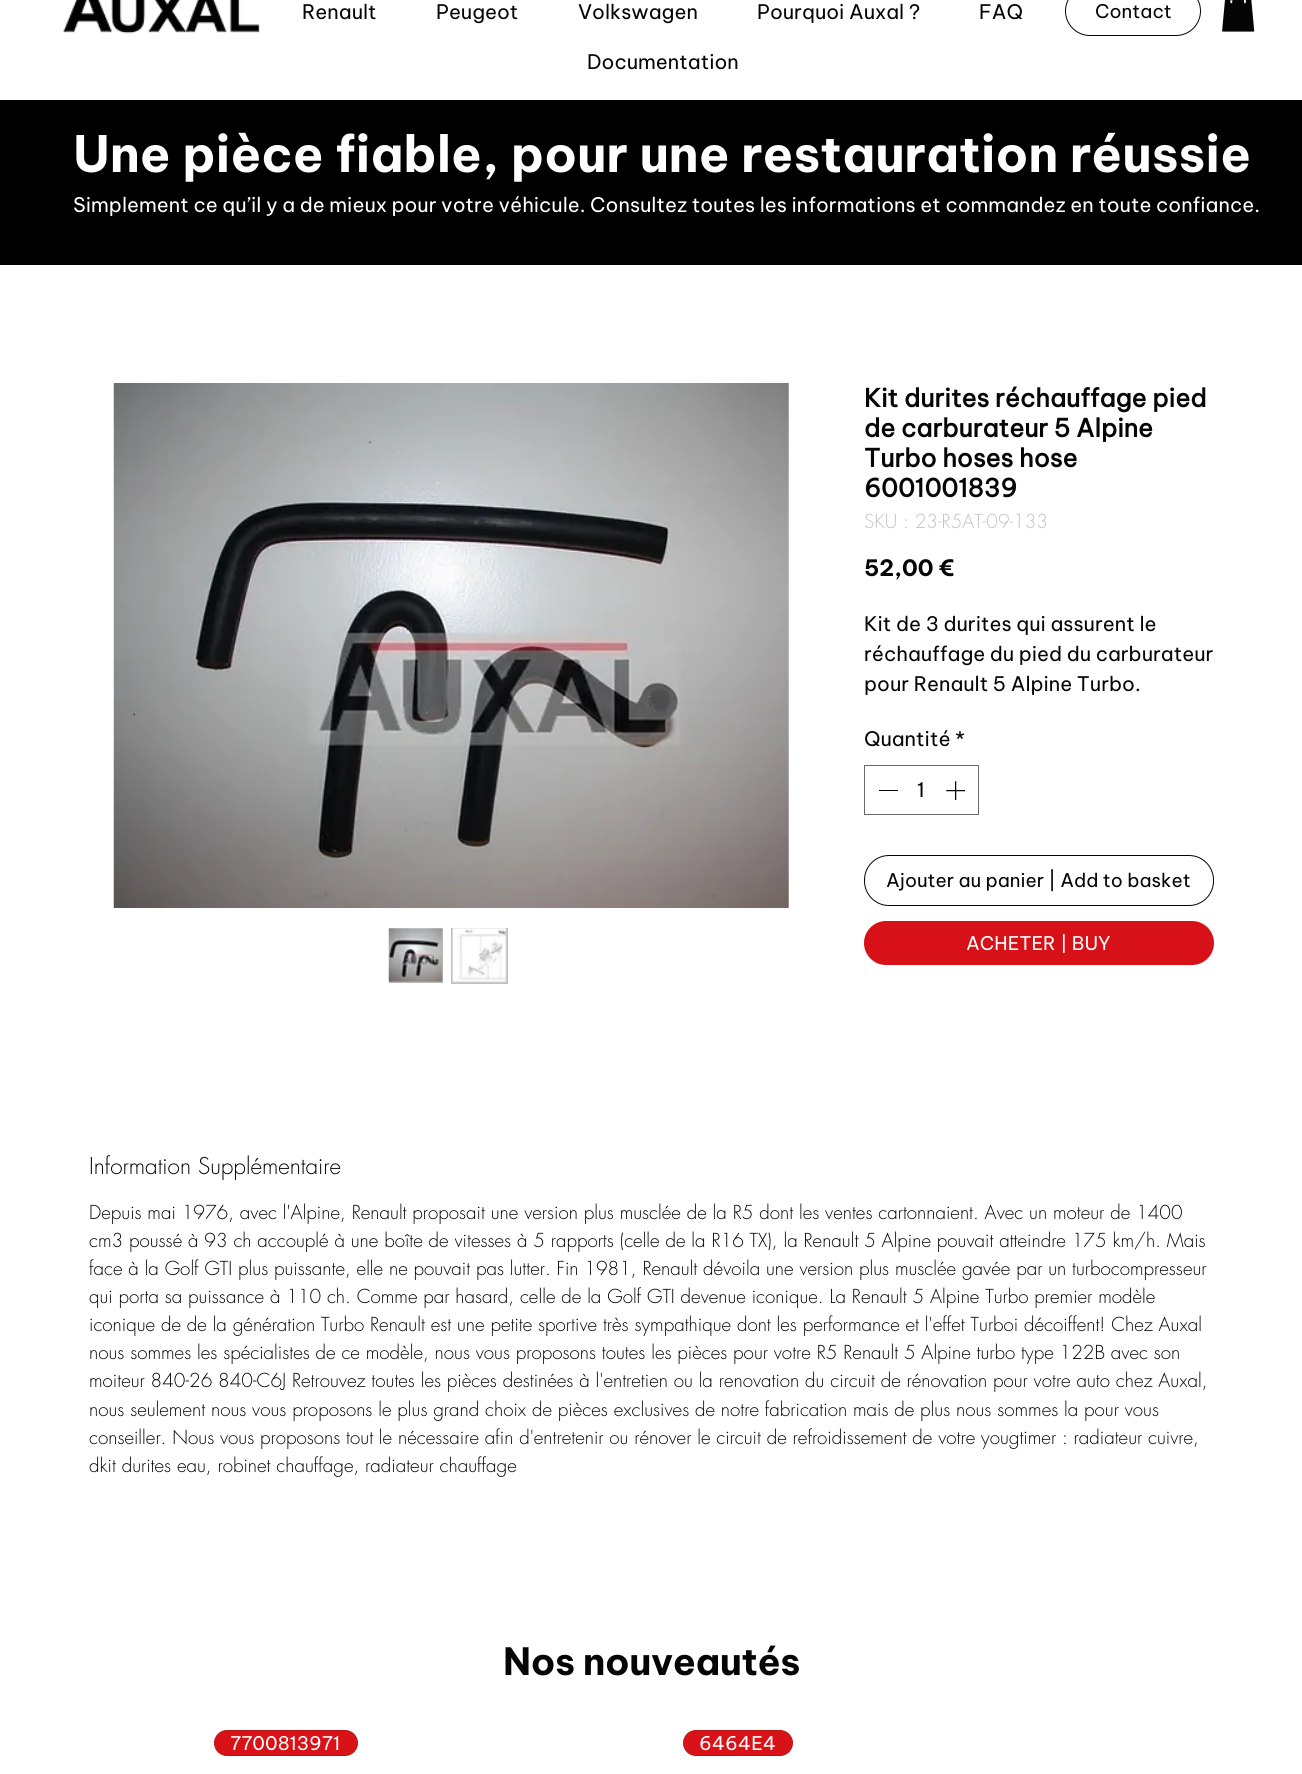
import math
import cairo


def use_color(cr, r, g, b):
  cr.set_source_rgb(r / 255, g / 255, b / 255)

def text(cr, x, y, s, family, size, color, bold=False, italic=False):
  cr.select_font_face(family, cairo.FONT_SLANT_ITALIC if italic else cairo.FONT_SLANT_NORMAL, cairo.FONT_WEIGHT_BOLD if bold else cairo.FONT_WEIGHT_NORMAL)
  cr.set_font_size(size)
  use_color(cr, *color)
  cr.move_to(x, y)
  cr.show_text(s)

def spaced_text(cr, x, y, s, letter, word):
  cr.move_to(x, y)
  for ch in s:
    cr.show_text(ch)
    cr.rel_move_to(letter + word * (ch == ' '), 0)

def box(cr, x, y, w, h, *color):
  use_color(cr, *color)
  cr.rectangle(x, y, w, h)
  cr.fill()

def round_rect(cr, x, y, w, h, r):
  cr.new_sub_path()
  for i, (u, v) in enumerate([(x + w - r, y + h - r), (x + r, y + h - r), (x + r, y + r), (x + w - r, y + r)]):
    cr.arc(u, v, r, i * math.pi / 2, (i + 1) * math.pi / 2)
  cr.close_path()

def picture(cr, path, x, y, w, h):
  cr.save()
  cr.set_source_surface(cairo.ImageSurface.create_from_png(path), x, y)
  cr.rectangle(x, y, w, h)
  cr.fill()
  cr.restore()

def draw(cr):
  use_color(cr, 255, 255, 255)
  cr.paint()
  picture(cr, "img_01.png", 63, 0, 197, 34)
  round_rect(cr, 1065.5, -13.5, 135, 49, 24.5)
  use_color(cr, 5, 5, 5)
  cr.set_line_width(1)
  cr.stroke()
  picture(cr, "img_02.png", 1222, 0, 33, 32)
  box(cr, 0, 100, 1302, 165, 0, 0, 0)
  picture(cr, "img_03.png", 113, 383, 676, 525)
  box(cr, 389, 929, 54, 54, 193, 193, 193)
  picture(cr, "img_04.png", 388, 928, 55, 55)
  box(cr, 451, 928, 57, 56, 193, 193, 193)
  picture(cr, "img_05.png", 452, 928, 55, 55)
  cr.rectangle(864.5, 765.5, 114, 49)
  use_color(cr, 105, 105, 105)
  cr.stroke()
  box(cr, 879, 790, 19, 1, 5, 5, 5)
  picture(cr, "img_06.png", 946, 781, 19, 19)
  round_rect(cr, 864.5, 855.5, 349, 50, 24.5)
  cr.stroke()
  use_color(cr, 216, 17, 24)
  round_rect(cr, 864, 921, 350, 44, 22)
  cr.fill()
  use_color(cr, 216, 18, 23)
  round_rect(cr, 214.5, 1730.5, 143, 25, 12.5)
  cr.fill_preserve()
  use_color(cr, 183, 20, 21)
  cr.stroke()
  use_color(cr, 216, 18, 23)
  round_rect(cr, 683.5, 1730.5, 109, 25, 12.5)
  cr.fill_preserve()
  use_color(cr, 183, 20, 21)
  cr.stroke()
  text(cr, 302, 19, "Renault", "Be Vietnam Pro", 20, (5, 5, 5))
  text(cr, 436, 19, "Peugeot", "Be Vietnam Pro", 20, (5, 5, 5))
  text(cr, 578, 19, "Volkswagen", "Be Vietnam Pro", 20, (5, 5, 5))
  text(cr, 757, 19, "Pourquoi Auxal ?", "Be Vietnam Pro", 20, (5, 5, 5))
  text(cr, 979, 19, "FAQ", "Be Vietnam Pro", 20, (5, 5, 5))
  text(cr, 587, 69, "Documentation", "Be Vietnam Pro", 20, (5, 5, 5))
  text(cr, 1095, 18, "Contact", "Be Vietnam Pro", 18.75, (5, 5, 5))
  text(cr, 73, 172, "Une pièce fiable, pour une restauration réussie", "Be Vietnam Pro", 50, (255, 255, 255), bold=True)
  text(cr, 73, 212, "Simplement ce qu’il y a de mieux pour votre véhicule. Consultez toutes les informations et commandez en toute confiance.", "Be Vietnam Pro", 20, (255, 255, 255))
  text(cr, 864, 407, "Kit durites réchauffage pied", "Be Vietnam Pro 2", 25, (5, 5, 5), bold=True)
  text(cr, 864, 437, "de carburateur 5 Alpine", "Be Vietnam Pro 2", 25, (5, 5, 5), bold=True)
  text(cr, 864, 467, "Turbo hoses hose", "Be Vietnam Pro 2", 25, (5, 5, 5), bold=True)
  text(cr, 864, 497, "6001001839", "Be Vietnam Pro 2", 25, (5, 5, 5), bold=True)
  text(cr, 864, 528, "SKU : 23-R5AT-09-133", "futura Light", 18.75, (193, 193, 193))
  text(cr, 864, 576, "52,00 €", "Be Vietnam Pro", 22.5, (5, 5, 5), bold=True)
  text(cr, 864, 631, "Kit de 3 durites qui assurent le", "Be Vietnam Pro", 20, (5, 5, 5))
  text(cr, 864, 661, "réchauffage du pied du carburateur", "Be Vietnam Pro", 20, (5, 5, 5))
  text(cr, 864, 691, "pour Renault 5 Alpine Turbo.", "Be Vietnam Pro", 20, (5, 5, 5))
  text(cr, 864, 746, "Quantité", "Be Vietnam Pro", 20, (5, 5, 5))
  text(cr, 955, 746, "*", "Be Vietnam Pro", 20, (5, 5, 5))
  text(cr, 917, 797, "1", "Be Vietnam Pro", 20, (5, 5, 5))
  text(cr, 886, 887, "Ajouter au panier | Add to basket", "Be Vietnam Pro", 18.75, (5, 5, 5))
  cr.save()
  cr.rectangle(966, 934, 145, 19)
  cr.clip()
  text(cr, 966, 950, "ACHETER | BUY", "Be Vietnam Pro", 18.75, (255, 255, 255))
  cr.restore()
  text(cr, 89, 1174, "Information Supplémentaire", "futura Light", 22.5, (5, 5, 5))
  text(cr, 89, 1219, "Depuis mai 1976, avec l'Alpine, Renault proposait une version plus musclée de la R5 dont les ventes cartonnaient. Avec un moteur de 1400", "futura Light", 18.75, (5, 5, 5))
  text(cr, 89, 1247, "cm3 poussé à 93 ch accouplé à une boîte de vitesses à 5 rapports (celle de la R16 TX), la Renault 5 Alpine pouvait atteindre 175 km/h. Mais", "futura Light", 18.75, (5, 5, 5))
  text(cr, 89, 1275, "face à la Golf GTI plus puissante, elle ne pouvait pas lutter. Fin 1981, Renault dévoila une version plus musclée gavée par un turbocompresseur", "futura Light", 18.75, (5, 5, 5))
  text(cr, 89, 1303, "qui porta sa puissance à 110 ch. Comme par hasard, celle de la Golf GTI devenue iconique. La Renault 5 Alpine Turbo premier modèle", "futura Light", 18.75, (5, 5, 5))
  text(cr, 89, 1331, "iconique de de la génération Turbo Renault est une petite sportive très sympathique dont les performance et l'effet Turboi décoiffent! Chez Auxal", "futura Light", 18.75, (5, 5, 5))
  text(cr, 89, 1359, "nous sommes les spécialistes de ce modèle, nous vous proposons toutes les pièces pour votre R5 Renault 5 Alpine turbo type 122B avec son", "futura Light", 18.75, (5, 5, 5))
  text(cr, 89, 1387, "moiteur 840-26 840-C6J Retrouvez toutes les pièces destinées à l'entretien ou la renovation du circuit de rénovation pour votre auto chez Auxal,", "futura Light", 18.75, (5, 5, 5))
  text(cr, 89, 1416, "nous seulement nous vous proposons le plus grand choix de pièces exclusives de notre fabrication mais de plus nous sommes la pour vous", "futura Light", 18.75, (5, 5, 5))
  text(cr, 89, 1444, "conseiller. Nous vous proposons tout le nécessaire afin d'entretenir ou rénover le circuit de refroidissement de votre yougtimer : radiateur cuivre,", "futura Light", 18.75, (5, 5, 5))
  text(cr, 89, 1472, "dkit durites eau, robinet chauffage, radiateur chauffage", "futura Light", 18.75, (5, 5, 5))
  cr.select_font_face("Be Vietnam Pro", cairo.FONT_SLANT_NORMAL, cairo.FONT_WEIGHT_BOLD)
  cr.set_font_size(37.5)
  spaced_text(cr, 503, 1675, "Nos nouveautés", -0.4, 0)
  text(cr, 230, 1750, "7700813971", "Be Vietnam Pro", 18.75, (255, 255, 255))
  text(cr, 699, 1750, "6464E4", "Be Vietnam Pro", 18.75, (255, 255, 255))


surface = cairo.ImageSurface(cairo.FORMAT_RGB24, 1302, 1774)
cr = cairo.Context(surface)
options = cairo.FontOptions()
options.set_hint_metrics(cairo.HINT_METRICS_OFF)
options.set_hint_style(cairo.HINT_STYLE_NONE)
cr.set_font_options(options)
cr.set_miter_limit(4)
draw(cr)
surface.write_to_png("out.png")
